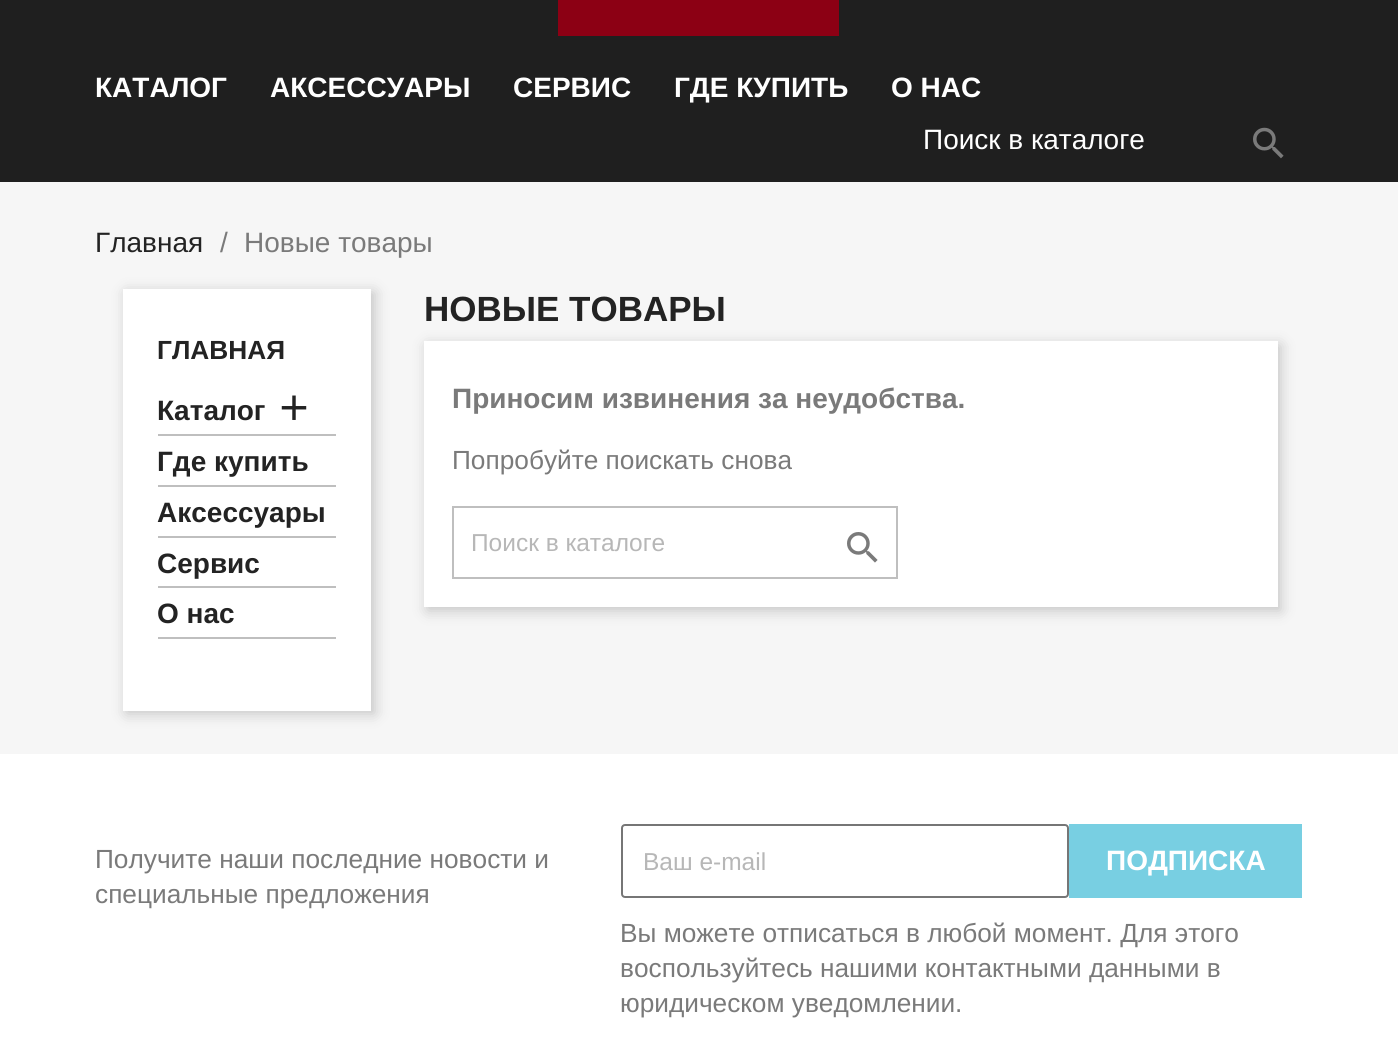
import math
import cairo


def use_color(cr, r, g, b):
  cr.set_source_rgb(r / 255, g / 255, b / 255)

def text(cr, x, y, s, family, size, color, bold=False, italic=False):
  cr.select_font_face(family, cairo.FONT_SLANT_ITALIC if italic else cairo.FONT_SLANT_NORMAL, cairo.FONT_WEIGHT_BOLD if bold else cairo.FONT_WEIGHT_NORMAL)
  cr.set_font_size(size)
  use_color(cr, *color)
  cr.move_to(x, y)
  cr.show_text(s)

def box(cr, x, y, w, h, *color):
  use_color(cr, *color)
  cr.rectangle(x, y, w, h)
  cr.fill()

def round_rect(cr, x, y, w, h, r):
  cr.new_sub_path()
  for i, (u, v) in enumerate([(x + w - r, y + h - r), (x + r, y + h - r), (x + r, y + r), (x + w - r, y + r)]):
    cr.arc(u, v, r, i * math.pi / 2, (i + 1) * math.pi / 2)
  cr.close_path()

def shadow(cr, x, y, w, h, r, blur, alpha):
  cr.push_group_with_content(cairo.CONTENT_ALPHA)
  cr.set_operator(cairo.OPERATOR_SOURCE)
  for i in range(15, -16, -2):
    e = blur * i / 6
    if min(w, h) + 2 * e > 0:
      cr.set_source_rgba(0, 0, 0, alpha * math.erfc((i - 1) / 8.5) / 2)
      round_rect(cr, x - e, y - e, w + 2 * e, h + 2 * e, max(0, min(r + e + blur * .6, min(w, h) / 2 + e)))
      cr.fill()
  cr.mask(cr.pop_group())

def picture(cr, path, x, y, w, h):
  cr.save()
  cr.set_source_surface(cairo.ImageSurface.create_from_png(path), x, y)
  cr.rectangle(x, y, w, h)
  cr.fill()
  cr.restore()

def draw(cr):
  use_color(cr, 255, 255, 255)
  cr.paint()
  box(cr, 0, 0, 1398, 182, 31, 31, 31)
  box(cr, 558, 0, 281, 36, 140, 0, 20)
  picture(cr, "img_01.png", 1253, 127, 31, 32)
  box(cr, 0, 182, 1398, 572, 246, 246, 246)
  use_color(cr, 0, 0, 0)
  shadow(cr, 126, 292, 249, 422, 0, 7, 0.2)
  box(cr, 123, 289, 248, 422, 255, 255, 255)
  box(cr, 158, 434, 178, 2, 191, 191, 191)
  picture(cr, "img_02.png", 281, 395, 26, 25)
  box(cr, 158, 485, 178, 2, 191, 191, 191)
  box(cr, 158, 536, 178, 2, 191, 191, 191)
  box(cr, 158, 586, 178, 2, 191, 191, 191)
  box(cr, 158, 637, 178, 2, 191, 191, 191)
  use_color(cr, 0, 0, 0)
  shadow(cr, 427, 345, 854, 266, 0, 7, 0.2)
  box(cr, 424, 341, 854, 266, 255, 255, 255)
  cr.rectangle(453, 507, 444, 71)
  use_color(cr, 191, 191, 191)
  cr.stroke()
  picture(cr, "img_03.png", 847, 532, 31, 31)
  round_rect(cr, 622, 825, 446, 72, 3)
  use_color(cr, 118, 118, 118)
  cr.stroke()
  box(cr, 1069, 824, 233, 74, 120, 207, 226)
  text(cr, 95, 97, "КАТАЛОГ", "Liberation Sans", 28, (255, 255, 255), bold=True)
  text(cr, 270, 97, "АКСЕССУАРЫ", "Liberation Sans", 28, (255, 255, 255), bold=True)
  text(cr, 513, 97, "СЕРВИС", "Liberation Sans", 28, (255, 255, 255), bold=True)
  text(cr, 674, 97, "ГДЕ КУПИТЬ", "Liberation Sans", 28, (255, 255, 255), bold=True)
  text(cr, 891, 97, "О НАС", "Liberation Sans", 28, (255, 255, 255), bold=True)
  text(cr, 923, 149, "Поиск в каталоге", "Liberation Sans", 28, (255, 255, 255))
  text(cr, 95, 252, "Главная", "Liberation Sans", 28, (35, 35, 35))
  text(cr, 220, 252, "/", "Liberation Sans", 28, (122, 122, 122))
  text(cr, 244, 252, "Новые товары", "Liberation Sans", 28, (122, 122, 122))
  text(cr, 157, 359, "ГЛАВНАЯ", "Liberation Sans", 26.25, (35, 35, 35), bold=True)
  text(cr, 157, 420, "Каталог", "Liberation Sans", 28, (35, 35, 35), bold=True)
  text(cr, 157, 471, "Где купить", "Liberation Sans", 28, (35, 35, 35), bold=True)
  text(cr, 157, 522, "Аксессуары", "Liberation Sans", 28, (35, 35, 35), bold=True)
  text(cr, 157, 573, "Сервис", "Liberation Sans", 28, (35, 35, 35), bold=True)
  text(cr, 157, 623, "О нас", "Liberation Sans", 28, (35, 35, 35), bold=True)
  text(cr, 424, 321, "НОВЫЕ ТОВАРЫ", "Liberation Sans", 35, (35, 35, 35), bold=True)
  text(cr, 452, 408, "Приносим извинения за неудобства.", "Liberation Sans", 28, (122, 122, 122), bold=True)
  text(cr, 452, 469, "Попробуйте поискать снова", "Liberation Sans", 26.25, (122, 122, 122))
  text(cr, 471, 551, "Поиск в каталоге", "Liberation Sans", 24.5, (183, 183, 183))
  text(cr, 95, 868, "Получите наши последние новости и", "Liberation Sans", 26.25, (122, 122, 122))
  text(cr, 95, 903, "специальные предложения", "Liberation Sans", 26.25, (122, 122, 122))
  text(cr, 643, 870, "Ваш e-mail", "Liberation Sans", 24.5, (183, 183, 183))
  text(cr, 1106, 870, "ПОДПИСКА", "Liberation Sans", 28, (255, 255, 255), bold=True)
  text(cr, 620, 942, "Вы можете отписаться в любой момент. Для этого", "Liberation Sans", 26.25, (122, 122, 122))
  text(cr, 620, 977, "воспользуйтесь нашими контактными данными в", "Liberation Sans", 26.25, (122, 122, 122))
  text(cr, 620, 1012, "юридическом уведомлении.", "Liberation Sans", 26.25, (122, 122, 122))


surface = cairo.ImageSurface(cairo.FORMAT_RGB24, 1398, 1038)
cr = cairo.Context(surface)
options = cairo.FontOptions()
options.set_hint_metrics(cairo.HINT_METRICS_OFF)
options.set_hint_style(cairo.HINT_STYLE_NONE)
cr.set_font_options(options)
cr.set_miter_limit(4)
draw(cr)
surface.write_to_png("out.png")
